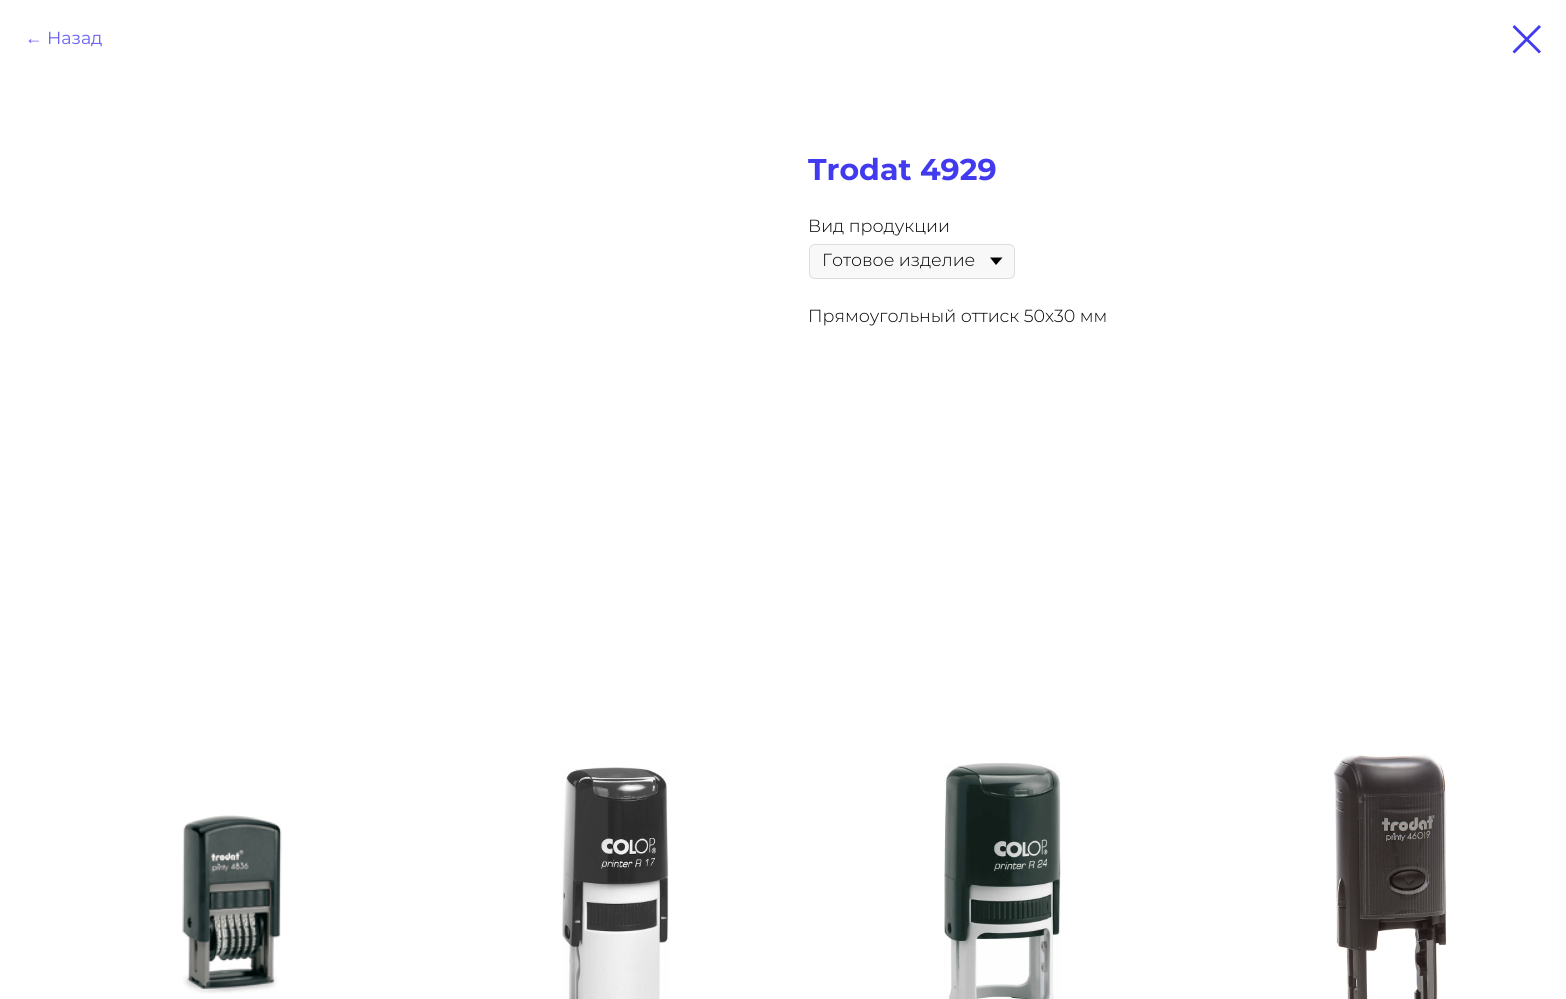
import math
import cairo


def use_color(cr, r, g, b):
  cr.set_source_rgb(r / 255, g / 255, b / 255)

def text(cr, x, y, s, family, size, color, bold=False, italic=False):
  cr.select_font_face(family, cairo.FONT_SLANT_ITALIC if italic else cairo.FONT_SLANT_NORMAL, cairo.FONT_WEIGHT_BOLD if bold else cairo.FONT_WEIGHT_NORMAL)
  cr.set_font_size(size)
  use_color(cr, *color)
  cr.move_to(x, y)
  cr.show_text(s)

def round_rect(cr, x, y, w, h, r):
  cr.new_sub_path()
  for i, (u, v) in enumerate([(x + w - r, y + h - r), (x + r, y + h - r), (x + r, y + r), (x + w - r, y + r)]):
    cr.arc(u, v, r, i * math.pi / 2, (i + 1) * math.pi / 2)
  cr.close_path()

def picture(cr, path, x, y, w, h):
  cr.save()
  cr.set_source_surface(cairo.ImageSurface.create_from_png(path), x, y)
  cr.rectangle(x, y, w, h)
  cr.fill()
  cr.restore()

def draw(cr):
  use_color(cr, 255, 255, 255)
  cr.paint()
  use_color(cr, 66, 58, 239)
  cr.set_fill_rule(cairo.FILL_RULE_EVEN_ODD)
  cr.new_path()
  cr.move_to(1512.5, 27)
  cr.line_to(1514.5, 25)
  cr.line_to(1541, 51.5)
  cr.line_to(1539, 53.5)
  cr.close_path()
  cr.fill()
  cr.new_path()
  cr.move_to(1539, 25)
  cr.line_to(1541, 27)
  cr.line_to(1514.5, 53.5)
  cr.line_to(1512.5, 51.5)
  cr.close_path()
  cr.fill()
  use_color(cr, 248, 248, 248)
  round_rect(cr, 809.5, 244.5, 205, 34, 5.5)
  cr.fill_preserve()
  use_color(cr, 221, 221, 221)
  cr.set_line_width(1)
  cr.stroke()
  use_color(cr, 0, 0, 0)
  cr.set_fill_rule(cairo.FILL_RULE_WINDING)
  cr.new_path()
  cr.move_to(990, 257.5)
  cr.line_to(1002.5, 257.5)
  cr.line_to(996, 265)
  cr.close_path()
  cr.fill()
  picture(cr, "img_01.png", 182, 815, 100, 179)
  picture(cr, "img_02.png", 562, 767, 107, 232)
  picture(cr, "img_03.png", 944, 763, 117, 236)
  picture(cr, "img_04.png", 1333, 754, 114, 245)
  text(cr, 25, 44, "←", "Liberation Sans", 17.5, (104, 97, 242))
  text(cr, 47, 44, "Назад", "Montserrat", 17.5, (104, 97, 242))
  text(cr, 808, 180, "Trodat 4929", "Montserrat", 30, (66, 58, 239), bold=True)
  text(cr, 808, 232, "Вид продукции", "Montserrat Light", 17.5, (0, 0, 0))
  text(cr, 822, 266, "Готовое изделие", "Montserrat Light", 17.5, (0, 0, 0))
  text(cr, 808, 322, "Прямоугольный оттиск 50х30 мм", "Montserrat Light", 17.5, (0, 0, 0))


surface = cairo.ImageSurface(cairo.FORMAT_RGB24, 1566, 999)
cr = cairo.Context(surface)
options = cairo.FontOptions()
options.set_hint_metrics(cairo.HINT_METRICS_OFF)
options.set_hint_style(cairo.HINT_STYLE_NONE)
cr.set_font_options(options)
cr.set_miter_limit(4)
draw(cr)
surface.write_to_png("out.png")
